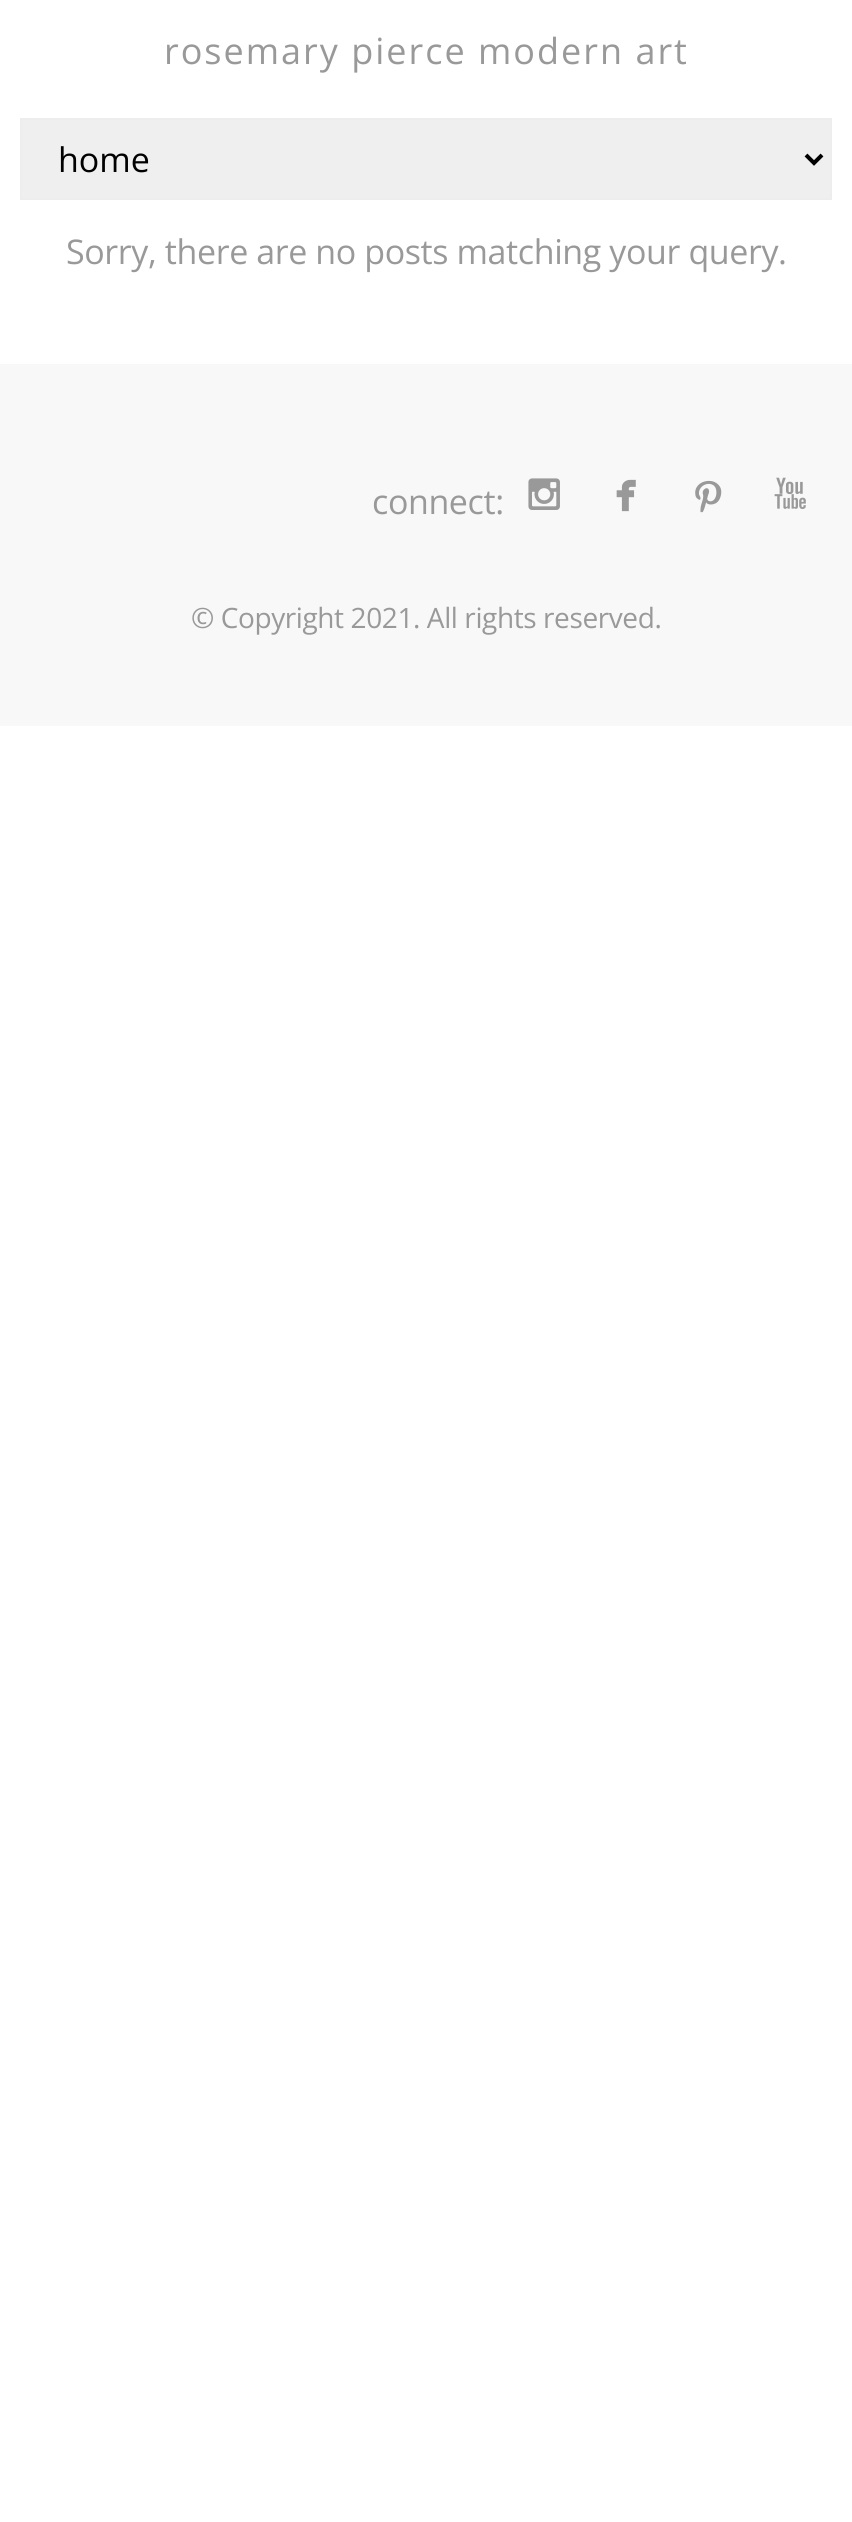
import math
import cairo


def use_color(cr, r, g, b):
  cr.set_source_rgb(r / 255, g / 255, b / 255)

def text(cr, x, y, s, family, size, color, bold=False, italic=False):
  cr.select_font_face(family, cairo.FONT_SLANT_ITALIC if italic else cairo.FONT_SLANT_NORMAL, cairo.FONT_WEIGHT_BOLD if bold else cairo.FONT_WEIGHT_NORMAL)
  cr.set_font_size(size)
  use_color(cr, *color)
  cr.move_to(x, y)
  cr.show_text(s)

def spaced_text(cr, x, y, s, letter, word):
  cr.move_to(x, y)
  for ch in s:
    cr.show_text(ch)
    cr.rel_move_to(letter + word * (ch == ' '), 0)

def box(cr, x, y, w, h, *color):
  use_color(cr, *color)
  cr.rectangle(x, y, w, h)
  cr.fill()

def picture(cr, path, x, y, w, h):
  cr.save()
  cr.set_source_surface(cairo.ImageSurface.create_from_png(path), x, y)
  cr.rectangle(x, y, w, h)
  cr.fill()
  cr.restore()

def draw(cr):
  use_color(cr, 255, 255, 255)
  cr.paint()
  use_color(cr, 239, 239, 239)
  cr.rectangle(21, 119, 810, 80)
  cr.fill_preserve()
  use_color(cr, 237, 237, 237)
  cr.stroke()
  cr.new_path()
  cr.move_to(806, 155)
  cr.line_to(814, 163)
  cr.line_to(822, 155)
  use_color(cr, 0, 0, 0)
  cr.set_line_width(4)
  cr.stroke()
  box(cr, 0, 364, 852, 362, 248, 248, 248)
  picture(cr, "img_01.png", 528, 478, 32, 32)
  picture(cr, "img_02.png", 616, 479, 20, 33)
  picture(cr, "img_03.png", 695, 480, 27, 33)
  picture(cr, "img_04.png", 774, 477, 32, 32)
  cr.select_font_face("Open Sans")
  cr.set_font_size(36)
  use_color(cr, 153, 153, 153)
  spaced_text(cr, 164, 64, "rosemary pierce modern art", 2, 0)
  text(cr, 58, 172, "home", "Open Sans", 34, (0, 0, 0))
  use_color(cr, 153, 153, 153)
  spaced_text(cr, 66, 264, "Sorry, there are no posts matching your query.", -0.4, 0)
  spaced_text(cr, 372, 514, "connect:", -0.4, 0)
  cr.set_font_size(28)
  spaced_text(cr, 191, 628, "© Copyright 2021. All rights reserved.", -0.4, 0)


surface = cairo.ImageSurface(cairo.FORMAT_RGB24, 852, 2522)
cr = cairo.Context(surface)
options = cairo.FontOptions()
options.set_hint_metrics(cairo.HINT_METRICS_OFF)
options.set_hint_style(cairo.HINT_STYLE_NONE)
cr.set_font_options(options)
cr.set_miter_limit(4)
draw(cr)
surface.write_to_png("out.png")
